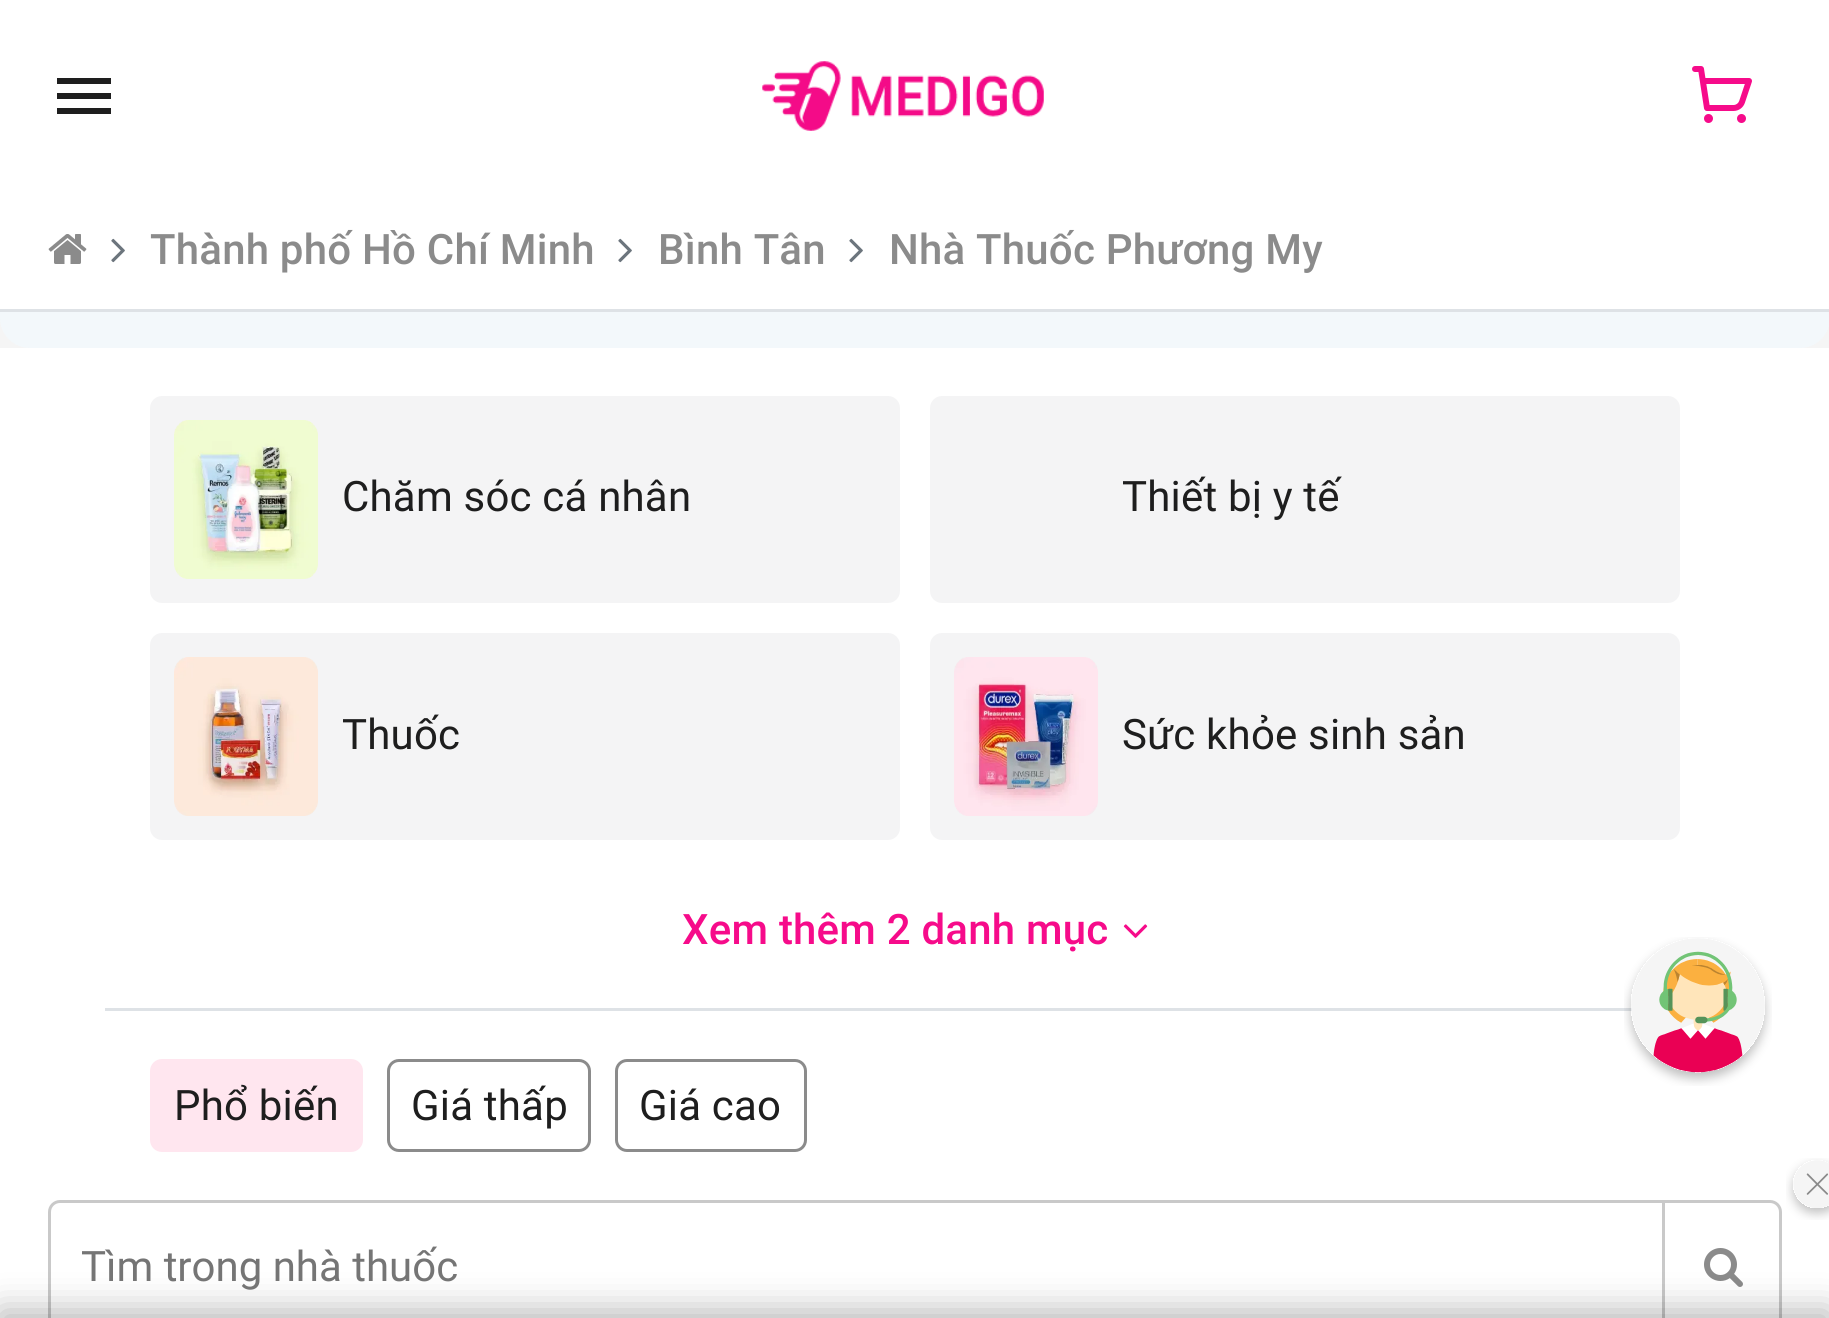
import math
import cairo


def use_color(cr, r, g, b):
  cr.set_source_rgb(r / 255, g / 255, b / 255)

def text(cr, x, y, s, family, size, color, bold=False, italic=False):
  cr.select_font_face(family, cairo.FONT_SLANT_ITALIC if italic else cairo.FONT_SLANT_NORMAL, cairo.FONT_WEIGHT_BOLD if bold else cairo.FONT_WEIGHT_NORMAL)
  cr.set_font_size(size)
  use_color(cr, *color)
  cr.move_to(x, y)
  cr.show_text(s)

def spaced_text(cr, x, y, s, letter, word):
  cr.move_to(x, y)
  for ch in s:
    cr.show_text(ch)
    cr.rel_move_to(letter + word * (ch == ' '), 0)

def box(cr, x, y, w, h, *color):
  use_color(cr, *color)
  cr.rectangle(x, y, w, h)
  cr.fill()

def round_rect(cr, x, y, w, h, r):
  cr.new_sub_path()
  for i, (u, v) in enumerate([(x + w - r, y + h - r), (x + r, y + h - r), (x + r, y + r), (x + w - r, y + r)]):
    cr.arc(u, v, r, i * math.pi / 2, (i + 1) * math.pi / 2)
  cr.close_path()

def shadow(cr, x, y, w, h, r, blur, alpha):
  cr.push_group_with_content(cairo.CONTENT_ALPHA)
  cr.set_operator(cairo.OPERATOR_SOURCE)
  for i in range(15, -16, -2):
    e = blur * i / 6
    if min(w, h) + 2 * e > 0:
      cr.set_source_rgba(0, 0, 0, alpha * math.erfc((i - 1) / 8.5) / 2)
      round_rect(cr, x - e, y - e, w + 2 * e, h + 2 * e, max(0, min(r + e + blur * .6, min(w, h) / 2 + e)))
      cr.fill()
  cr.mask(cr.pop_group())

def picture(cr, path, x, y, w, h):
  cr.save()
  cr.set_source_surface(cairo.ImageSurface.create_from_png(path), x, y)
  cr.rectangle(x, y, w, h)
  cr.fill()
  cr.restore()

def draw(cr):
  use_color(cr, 245, 245, 245)
  cr.paint()
  use_color(cr, 243, 248, 251)
  round_rect(cr, 0, -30, 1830, 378, 30)
  cr.fill()
  box(cr, 0, 0, 1829, 309, 255, 255, 255)
  use_color(cr, 30, 30, 30)
  cr.new_path()
  cr.move_to(57, 78)
  cr.line_to(111, 78)
  cr.line_to(111, 84)
  cr.line_to(57, 84)
  cr.line_to(57, 78)
  cr.move_to(57, 93)
  cr.line_to(111, 93)
  cr.line_to(111, 99)
  cr.line_to(57, 99)
  cr.line_to(57, 93)
  cr.move_to(57, 108)
  cr.line_to(111, 108)
  cr.line_to(111, 114)
  cr.line_to(57, 114)
  cr.close_path()
  cr.fill()
  picture(cr, "img_01.png", 762, 61, 282, 70)
  picture(cr, "img_02.png", 1692, 66, 60, 57)
  box(cr, 0, 309, 1829, 3, 222, 226, 230)
  picture(cr, "img_03.png", 48, 234, 39, 30)
  picture(cr, "img_04.png", 111, 238, 14, 25)
  picture(cr, "img_04.png", 618, 238, 14, 25)
  picture(cr, "img_04.png", 849, 238, 14, 25)
  box(cr, 0, 348, 1829, 970, 255, 255, 255)
  box(cr, 105, 1008, 1527, 3, 222, 226, 230)
  use_color(cr, 244, 244, 245)
  round_rect(cr, 150, 396, 750, 207, 12)
  cr.fill()
  picture(cr, "img_05.png", 174, 420, 144, 159)
  round_rect(cr, 930, 396, 750, 207, 12)
  cr.fill()
  round_rect(cr, 150, 633, 750, 207, 12)
  cr.fill()
  picture(cr, "img_06.png", 174, 657, 144, 159)
  round_rect(cr, 930, 633, 750, 207, 12)
  cr.fill()
  picture(cr, "img_07.png", 954, 657, 144, 159)
  picture(cr, "img_08.png", 1123, 924, 25, 14)
  use_color(cr, 255, 230, 239)
  round_rect(cr, 151.5, 1060.5, 210, 90, 10.5)
  cr.fill_preserve()
  cr.set_line_width(3)
  cr.stroke()
  round_rect(cr, 388.5, 1060.5, 201, 90, 10.5)
  use_color(cr, 139, 139, 139)
  cr.stroke()
  round_rect(cr, 616.5, 1060.5, 189, 90, 10.5)
  cr.stroke()
  round_rect(cr, 49.5, 1201.5, 1731, 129, 10.5)
  use_color(cr, 201, 201, 201)
  cr.stroke()
  box(cr, 1662, 1200, 3, 118, 201, 201, 201)
  picture(cr, "img_09.png", 1704, 1248, 39, 39)
  picture(cr, "img_10.png", 1624, 937, 148, 149)
  picture(cr, "img_11.png", 1786, 1158, 43, 62)
  use_color(cr, 0, 0, 0)
  shadow(cr, 0, 1311, 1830, 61, 0, 18, 0.29)
  cr.select_font_face("Roboto Medium")
  cr.set_font_size(42)
  use_color(cr, 139, 139, 139)
  spaced_text(cr, 150, 264, "Thành phố Hồ Chí Minh", 0.2, 0)
  spaced_text(cr, 658, 264, "Bình Tân", 0.2, 0)
  spaced_text(cr, 889, 264, "Nhà Thuốc Phương My", 0.2, 0)
  cr.select_font_face("Roboto")
  use_color(cr, 30, 30, 30)
  spaced_text(cr, 342, 511, "Chăm sóc cá nhân", 0.2, 0)
  spaced_text(cr, 1122, 511, "Thiết bị y tế", 0.2, 0)
  spaced_text(cr, 342, 749, "Thuốc", 0.2, 0)
  spaced_text(cr, 1122, 749, "Sức khỏe sinh sản", 0.2, 0)
  cr.select_font_face("Roboto Medium")
  use_color(cr, 246, 11, 138)
  spaced_text(cr, 682, 944, "Xem thêm 2 danh mục", 0.2, 0)
  cr.select_font_face("Roboto")
  use_color(cr, 30, 30, 30)
  spaced_text(cr, 174, 1120, "Phổ biến", 0.2, 0)
  spaced_text(cr, 411, 1120, "Giá thấp", 0.2, 0)
  spaced_text(cr, 639, 1120, "Giá cao", 0.2, 0)
  text(cr, 81, 1281, "Tìm trong nhà thuốc", "Roboto", 42, (117, 117, 117))


surface = cairo.ImageSurface(cairo.FORMAT_RGB24, 1829, 1318)
cr = cairo.Context(surface)
options = cairo.FontOptions()
options.set_hint_metrics(cairo.HINT_METRICS_OFF)
options.set_hint_style(cairo.HINT_STYLE_NONE)
cr.set_font_options(options)
cr.set_miter_limit(4)
draw(cr)
surface.write_to_png("out.png")
